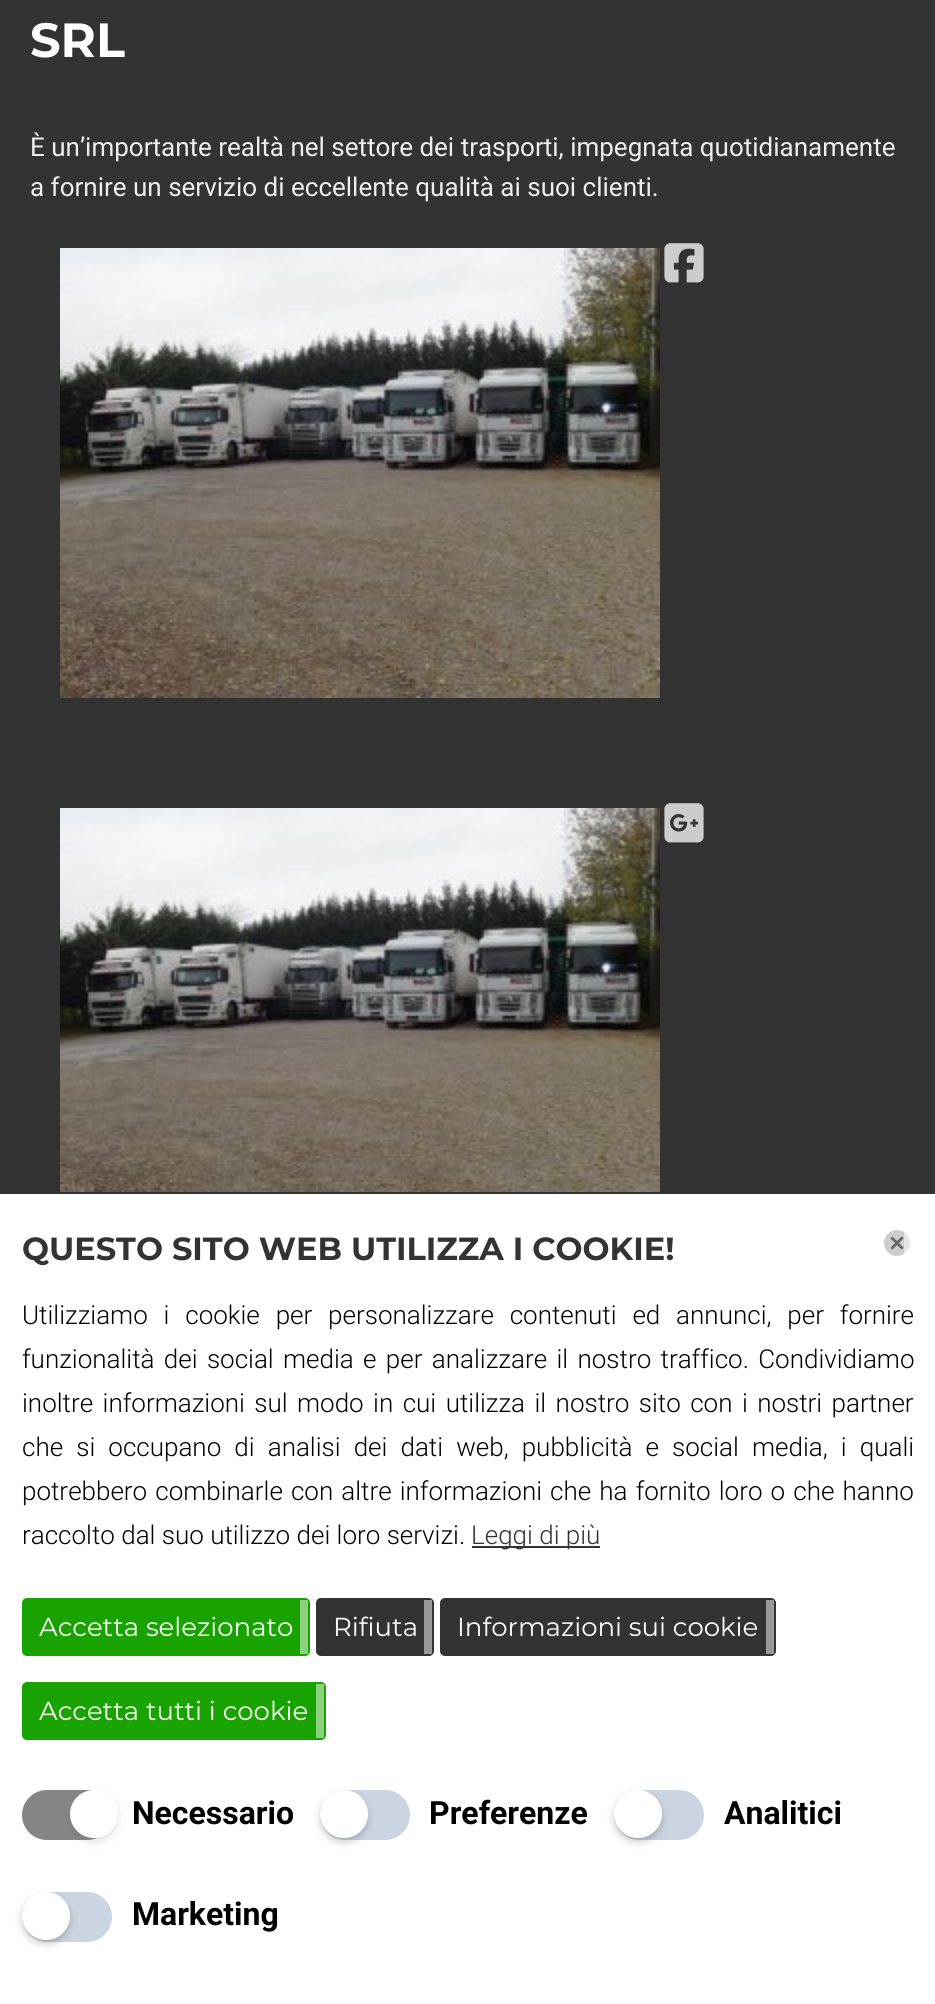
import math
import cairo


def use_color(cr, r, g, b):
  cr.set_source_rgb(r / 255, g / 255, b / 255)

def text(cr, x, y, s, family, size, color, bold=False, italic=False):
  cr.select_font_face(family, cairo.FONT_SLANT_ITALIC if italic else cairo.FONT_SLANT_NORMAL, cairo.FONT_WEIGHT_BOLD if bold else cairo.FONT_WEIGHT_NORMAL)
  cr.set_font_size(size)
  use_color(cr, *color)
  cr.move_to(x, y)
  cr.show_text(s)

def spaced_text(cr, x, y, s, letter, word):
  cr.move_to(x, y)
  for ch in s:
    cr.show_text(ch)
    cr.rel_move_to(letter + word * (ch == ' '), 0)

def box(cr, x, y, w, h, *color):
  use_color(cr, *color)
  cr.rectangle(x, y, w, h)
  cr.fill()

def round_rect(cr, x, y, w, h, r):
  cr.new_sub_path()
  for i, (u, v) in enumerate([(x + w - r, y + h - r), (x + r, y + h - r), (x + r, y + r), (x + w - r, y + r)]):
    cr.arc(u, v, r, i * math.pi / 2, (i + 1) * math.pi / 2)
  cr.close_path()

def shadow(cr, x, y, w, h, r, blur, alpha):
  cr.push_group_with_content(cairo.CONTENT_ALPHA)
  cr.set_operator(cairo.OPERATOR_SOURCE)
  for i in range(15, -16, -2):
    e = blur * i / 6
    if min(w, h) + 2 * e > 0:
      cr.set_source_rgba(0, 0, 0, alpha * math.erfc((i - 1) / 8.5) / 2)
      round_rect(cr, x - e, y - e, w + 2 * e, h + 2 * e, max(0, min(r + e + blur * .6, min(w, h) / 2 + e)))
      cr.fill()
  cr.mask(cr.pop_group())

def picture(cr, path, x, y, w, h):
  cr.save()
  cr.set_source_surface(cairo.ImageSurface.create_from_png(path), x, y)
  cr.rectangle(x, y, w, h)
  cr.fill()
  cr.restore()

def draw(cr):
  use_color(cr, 51, 51, 51)
  cr.paint()
  picture(cr, "img_01.png", 60, 248, 600, 450)
  picture(cr, "img_02.png", 664, 243, 40, 40)
  picture(cr, "img_03.png", 60, 808, 600, 384)
  picture(cr, "img_04.png", 664, 803, 40, 40)
  box(cr, 0, 1194, 935, 810, 255, 255, 255)
  picture(cr, "img_05.png", 884, 1230, 26, 26)
  cr.set_source_rgba(1, 1, 1, 0.5)
  cr.rectangle(904, 1228, 6, 30)
  cr.fill()
  box(cr, 472, 1546, 128, 2, 51, 51, 51)
  use_color(cr, 24, 163, 0)
  round_rect(cr, 22, 1598, 288, 58, 5)
  cr.fill()
  box(cr, 300, 1600, 8, 54, 140, 209, 128)
  use_color(cr, 51, 51, 51)
  round_rect(cr, 316, 1598, 118, 58, 5)
  cr.fill()
  box(cr, 424, 1600, 8, 54, 153, 153, 153)
  use_color(cr, 51, 51, 51)
  round_rect(cr, 440, 1598, 336, 58, 5)
  cr.fill()
  box(cr, 766, 1600, 8, 54, 153, 153, 153)
  use_color(cr, 24, 163, 0)
  round_rect(cr, 22, 1682, 304, 58, 5)
  cr.fill()
  box(cr, 316, 1684, 8, 54, 140, 209, 128)
  use_color(cr, 133, 133, 133)
  round_rect(cr, 22, 1790, 90, 50, 25)
  cr.fill()
  use_color(cr, 102, 102, 102)
  shadow(cr, 70, 1794, 48, 48, 24, 4, 0.2)
  use_color(cr, 255, 255, 255)
  cr.arc(94, 1814, 24, 0, 2 * math.pi)
  cr.fill()
  use_color(cr, 203, 213, 225)
  round_rect(cr, 320, 1790, 90, 50, 25)
  cr.fill()
  use_color(cr, 0, 0, 0)
  shadow(cr, 320, 1794, 48, 48, 24, 4, 0.2)
  use_color(cr, 255, 255, 255)
  cr.arc(344, 1814, 24, 0, 2 * math.pi)
  cr.fill()
  use_color(cr, 203, 213, 225)
  round_rect(cr, 614, 1790, 90, 50, 25)
  cr.fill()
  use_color(cr, 0, 0, 0)
  shadow(cr, 614, 1794, 48, 48, 24, 4, 0.2)
  use_color(cr, 255, 255, 255)
  cr.arc(638, 1814, 24, 0, 2 * math.pi)
  cr.fill()
  use_color(cr, 203, 213, 225)
  round_rect(cr, 22, 1892, 90, 50, 25)
  cr.fill()
  use_color(cr, 0, 0, 0)
  shadow(cr, 22, 1896, 48, 48, 24, 4, 0.2)
  use_color(cr, 255, 255, 255)
  cr.arc(46, 1916, 24, 0, 2 * math.pi)
  cr.fill()
  text(cr, 30, 57, "SRL", "Montserrat", 48, (255, 255, 255), bold=True)
  text(cr, 30, 156, "È un’importante realtà nel settore dei trasporti, impegnata quotidianamente", "Roboto", 26, (238, 238, 238))
  text(cr, 30, 196, "a fornire un servizio di eccellente qualità ai suoi clienti.", "Roboto", 26, (238, 238, 238))
  text(cr, 22, 1260, "QUESTO SITO WEB UTILIZZA I COOKIE!", "Montserrat", 32, (51, 51, 51), bold=True)
  cr.select_font_face("Roboto Light")
  cr.set_font_size(26)
  use_color(cr, 0, 0, 0)
  spaced_text(cr, 22, 1324, "Utilizziamo i cookie per personalizzare contenuti ed annunci, per fornire", 0, 9.5)
  spaced_text(cr, 22, 1368, "funzionalità dei social media e per analizzare il nostro traffico. Condividiamo", 0, 3)
  spaced_text(cr, 22, 1412, "inoltre informazioni sul modo in cui utilizza il nostro sito con i nostri partner", 0, 3.1)
  spaced_text(cr, 22, 1456, "che si occupano di analisi dei dati web, pubblicità e social media, i quali", 0, 6.75)
  spaced_text(cr, 22, 1500, "potrebbero combinarle con altre informazioni che ha fornito loro o che hanno", 0, 1.75)
  text(cr, 22, 1544, "raccolto dal suo utilizzo dei loro servizi.", "Roboto Light", 26, (0, 0, 0))
  text(cr, 471, 1544, "Leggi di più", "Roboto Light", 26, (51, 51, 51))
  text(cr, 39, 1636, "Accetta selezionato", "Montserrat", 26, (255, 255, 255))
  text(cr, 333, 1636, "Rifiuta", "Montserrat", 26, (255, 255, 255))
  text(cr, 457, 1636, "Informazioni sui cookie", "Montserrat", 26, (255, 255, 255))
  text(cr, 39, 1720, "Accetta tutti i cookie", "Montserrat", 26, (255, 255, 255))
  text(cr, 132, 1824, "Necessario", "Roboto", 32, (0, 0, 0), bold=True)
  text(cr, 429, 1824, "Preferenze", "Roboto", 32, (0, 0, 0), bold=True)
  text(cr, 724, 1824, "Analitici", "Roboto", 32, (0, 0, 0), bold=True)
  text(cr, 132, 1925, "Marketing", "Roboto", 32, (0, 0, 0), bold=True)


surface = cairo.ImageSurface(cairo.FORMAT_RGB24, 935, 2004)
cr = cairo.Context(surface)
options = cairo.FontOptions()
options.set_hint_metrics(cairo.HINT_METRICS_OFF)
options.set_hint_style(cairo.HINT_STYLE_NONE)
cr.set_font_options(options)
cr.set_miter_limit(4)
draw(cr)
surface.write_to_png("out.png")
